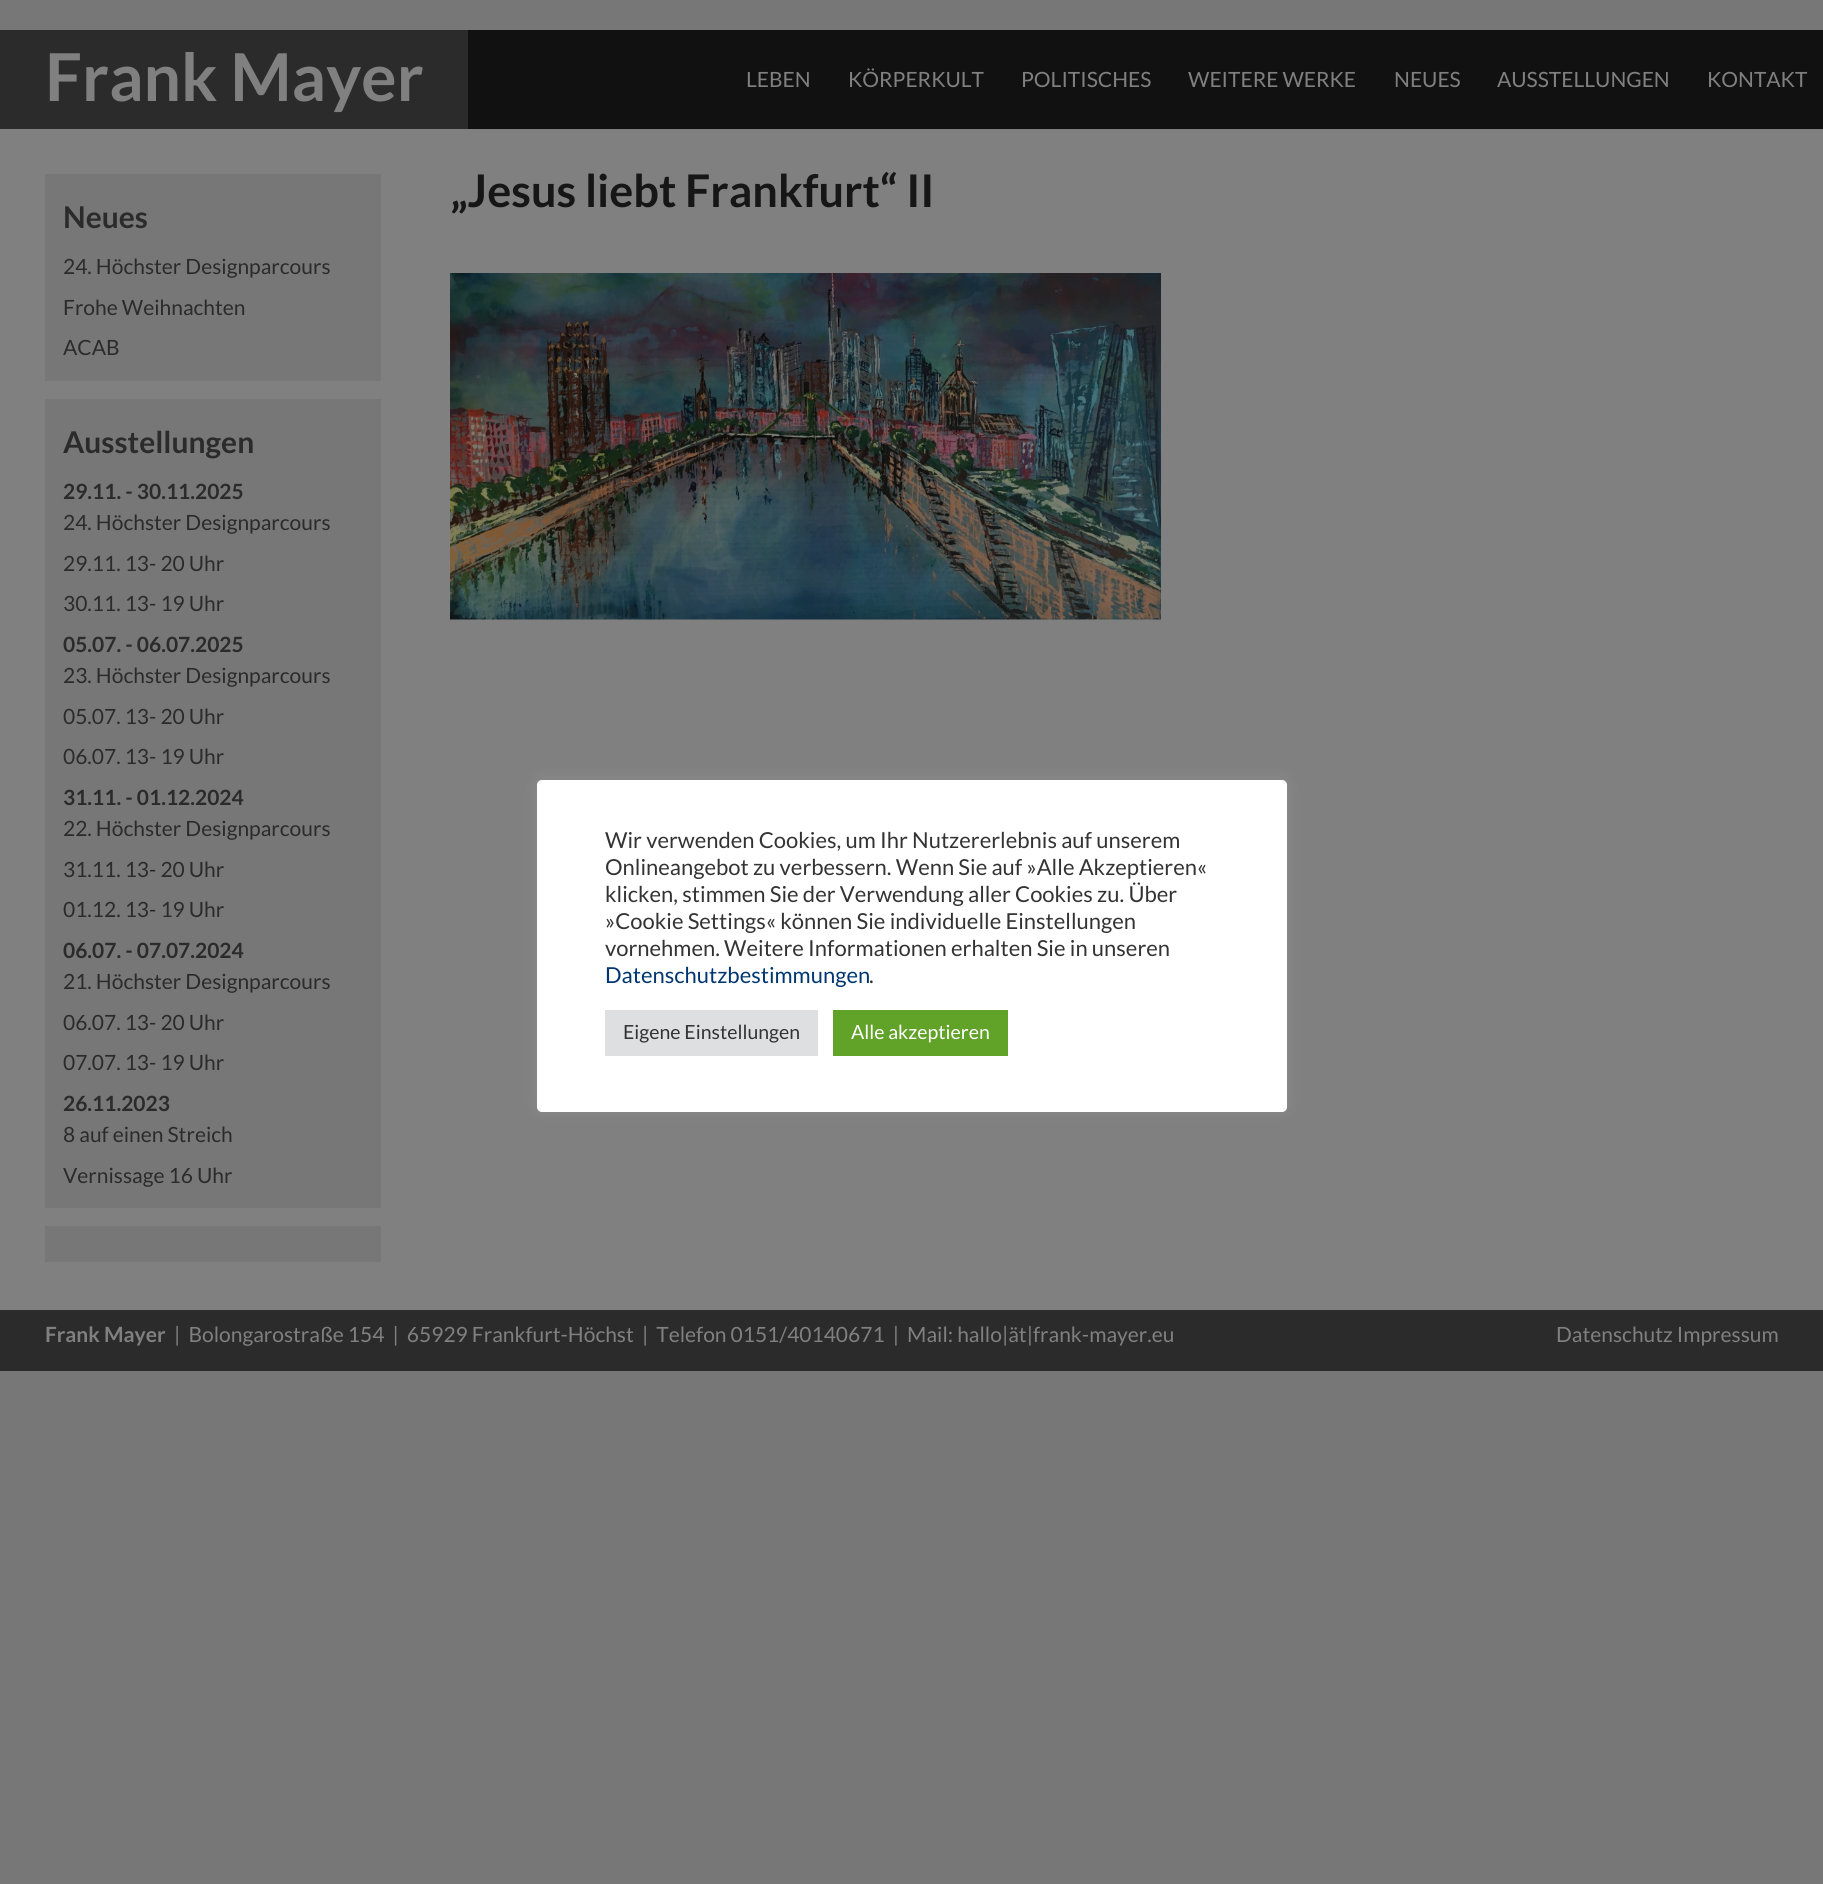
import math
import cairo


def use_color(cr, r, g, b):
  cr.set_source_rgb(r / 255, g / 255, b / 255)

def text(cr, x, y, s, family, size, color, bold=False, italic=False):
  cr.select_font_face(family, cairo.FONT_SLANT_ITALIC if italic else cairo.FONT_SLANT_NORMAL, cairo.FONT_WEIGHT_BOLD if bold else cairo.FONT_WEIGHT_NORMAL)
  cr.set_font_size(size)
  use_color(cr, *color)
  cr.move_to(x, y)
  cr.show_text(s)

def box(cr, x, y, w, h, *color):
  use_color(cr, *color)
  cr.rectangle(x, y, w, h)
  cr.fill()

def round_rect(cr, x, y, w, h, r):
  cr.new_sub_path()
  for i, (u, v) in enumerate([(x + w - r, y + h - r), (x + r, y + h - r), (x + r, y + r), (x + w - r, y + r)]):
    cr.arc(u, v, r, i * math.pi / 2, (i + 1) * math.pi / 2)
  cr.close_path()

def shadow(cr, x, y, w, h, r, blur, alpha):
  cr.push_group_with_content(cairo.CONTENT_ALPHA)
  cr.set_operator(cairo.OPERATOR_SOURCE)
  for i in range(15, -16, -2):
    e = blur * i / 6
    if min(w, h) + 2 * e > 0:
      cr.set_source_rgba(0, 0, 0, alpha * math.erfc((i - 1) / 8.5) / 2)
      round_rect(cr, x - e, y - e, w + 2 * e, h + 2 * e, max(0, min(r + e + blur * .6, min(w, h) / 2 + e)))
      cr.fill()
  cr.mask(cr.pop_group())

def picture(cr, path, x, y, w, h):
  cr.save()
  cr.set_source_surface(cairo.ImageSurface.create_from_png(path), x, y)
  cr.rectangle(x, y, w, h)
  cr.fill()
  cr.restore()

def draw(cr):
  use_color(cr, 119, 119, 119)
  cr.paint()
  box(cr, 0, 129, 1823, 1181, 128, 128, 128)
  box(cr, 468, 30, 1355, 99, 17, 17, 17)
  box(cr, 0, 30, 468, 99, 43, 43, 43)
  picture(cr, "img_01.png", 450, 273, 711, 347)
  box(cr, 45, 174, 336, 207, 119, 119, 119)
  box(cr, 45, 399, 336, 809, 119, 119, 119)
  box(cr, 45, 1226, 336, 36, 119, 119, 119)
  box(cr, 0, 1310, 1823, 61, 43, 43, 43)
  use_color(cr, 172, 171, 171)
  shadow(cr, 537, 779, 750, 331, 5, 7.5, 0.3)
  use_color(cr, 255, 255, 255)
  round_rect(cr, 537, 780, 750, 332, 5)
  cr.fill()
  box(cr, 605, 1010, 213, 46, 222, 223, 224)
  box(cr, 833, 1010, 175, 46, 97, 162, 41)
  text(cr, 45, 101, "Frank Mayer", "Lato", 66, (128, 128, 128), bold=True)
  text(cr, 746, 87, "LEBEN", "Lato", 21, (128, 128, 128))
  text(cr, 848, 87, "KÖRPERKULT", "Lato", 21, (128, 128, 128))
  text(cr, 1021, 87, "POLITISCHES", "Lato", 21, (128, 128, 128))
  text(cr, 1188, 87, "WEITERE WERKE", "Lato", 21, (128, 128, 128))
  text(cr, 1394, 87, "NEUES", "Lato", 21, (128, 128, 128))
  text(cr, 1497, 87, "AUSSTELLUNGEN", "Lato", 21, (128, 128, 128))
  text(cr, 1707, 87, "KONTAKT", "Lato", 21, (128, 128, 128))
  text(cr, 450, 207, "„Jesus liebt Frankfurt“ II", "Lato", 45, (22, 22, 22), bold=True)
  text(cr, 63, 228, "Neues", "Lato", 30, (43, 43, 43), bold=True)
  text(cr, 63, 274, "24. Höchster Designparcours", "Lato", 21, (43, 43, 43))
  text(cr, 63, 315, "Frohe Weihnachten", "Lato", 21, (43, 43, 43))
  text(cr, 63, 355, "ACAB", "Lato", 21, (43, 43, 43))
  text(cr, 63, 453, "Ausstellungen", "Lato", 30, (43, 43, 43), bold=True)
  text(cr, 63, 499, "29.11. - 30.11.2025", "Lato", 21, (43, 43, 43), bold=True)
  text(cr, 63, 530, "24. Höchster Designparcours", "Lato", 21, (43, 43, 43))
  text(cr, 63, 571, "29.11. 13- 20 Uhr", "Lato", 21, (43, 43, 43))
  text(cr, 63, 611, "30.11. 13- 19 Uhr", "Lato", 21, (43, 43, 43))
  text(cr, 63, 652, "05.07. - 06.07.2025", "Lato", 21, (43, 43, 43), bold=True)
  text(cr, 63, 683, "23. Höchster Designparcours", "Lato", 21, (43, 43, 43))
  text(cr, 63, 724, "05.07. 13- 20 Uhr", "Lato", 21, (43, 43, 43))
  text(cr, 63, 764, "06.07. 13- 19 Uhr", "Lato", 21, (43, 43, 43))
  text(cr, 63, 805, "31.11. - 01.12.2024", "Lato", 21, (43, 43, 43), bold=True)
  text(cr, 63, 836, "22. Höchster Designparcours", "Lato", 21, (43, 43, 43))
  text(cr, 63, 877, "31.11. 13- 20 Uhr", "Lato", 21, (43, 43, 43))
  text(cr, 63, 917, "01.12. 13- 19 Uhr", "Lato", 21, (43, 43, 43))
  text(cr, 63, 958, "06.07. - 07.07.2024", "Lato", 21, (43, 43, 43), bold=True)
  text(cr, 63, 989, "21. Höchster Designparcours", "Lato", 21, (43, 43, 43))
  text(cr, 63, 1030, "06.07. 13- 20 Uhr", "Lato", 21, (43, 43, 43))
  text(cr, 63, 1070, "07.07. 13- 19 Uhr", "Lato", 21, (43, 43, 43))
  text(cr, 63, 1111, "26.11.2023", "Lato", 21, (43, 43, 43), bold=True)
  text(cr, 63, 1142, "8 auf einen Streich", "Lato", 21, (43, 43, 43))
  text(cr, 63, 1183, "Vernissage 16 Uhr", "Lato", 21, (43, 43, 43))
  text(cr, 45, 1342, "Frank Mayer", "Lato", 21, (128, 128, 128), bold=True)
  text(cr, 174, 1342, "|  Bolongarostraße 154  |  65929 Frankfurt-Höchst  |  Telefon 0151/40140671  |  Mail: hallo|ät|frank-mayer.eu", "Lato", 21, (128, 128, 128))
  text(cr, 1556, 1342, "Datenschutz Impressum", "Lato", 21, (128, 128, 128))
  text(cr, 605, 848, "Wir verwenden Cookies, um Ihr Nutzererlebnis auf unserem", "Lato", 22, (51, 51, 51))
  text(cr, 605, 875, "Onlineangebot zu verbessern. Wenn Sie auf »Alle Akzeptieren«", "Lato", 22, (51, 51, 51))
  text(cr, 605, 902, "klicken, stimmen Sie der Verwendung aller Cookies zu. Über", "Lato", 22, (51, 51, 51))
  text(cr, 605, 929, "»Cookie Settings« können Sie individuelle Einstellungen", "Lato", 22, (51, 51, 51))
  text(cr, 605, 956, "vornehmen. Weitere Informationen erhalten Sie in unseren", "Lato", 22, (51, 51, 51))
  text(cr, 605, 983, "Datenschutzbestimmungen", "Lato", 22, (0, 53, 112))
  text(cr, 869, 983, ".", "Lato", 22, (51, 51, 51))
  text(cr, 623, 1039, "Eigene Einstellungen", "Lato", 19.5, (51, 51, 51))
  text(cr, 851, 1039, "Alle akzeptieren", "Lato", 19.5, (255, 255, 255))


surface = cairo.ImageSurface(cairo.FORMAT_RGB24, 1823, 1884)
cr = cairo.Context(surface)
options = cairo.FontOptions()
options.set_hint_metrics(cairo.HINT_METRICS_OFF)
options.set_hint_style(cairo.HINT_STYLE_NONE)
cr.set_font_options(options)
cr.set_miter_limit(4)
draw(cr)
surface.write_to_png("out.png")
